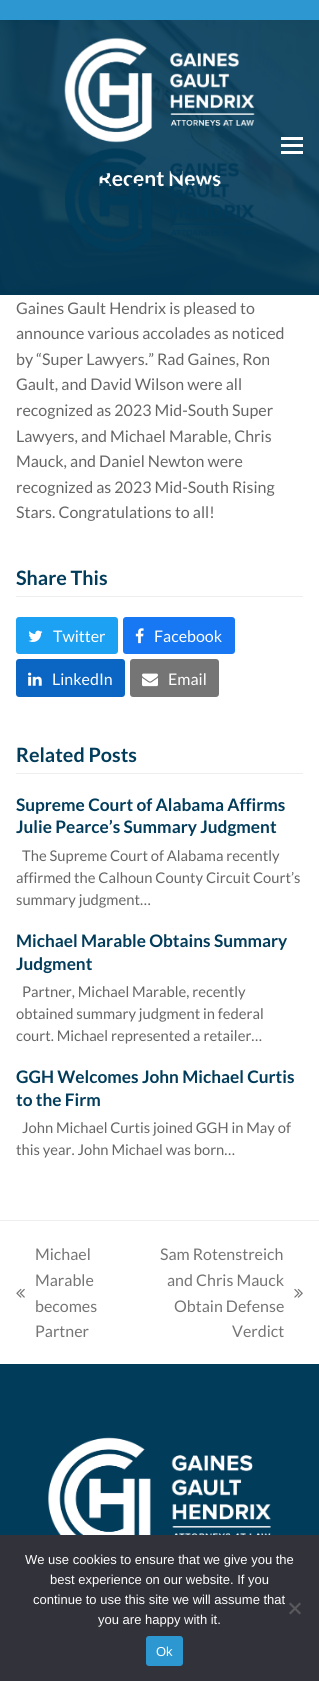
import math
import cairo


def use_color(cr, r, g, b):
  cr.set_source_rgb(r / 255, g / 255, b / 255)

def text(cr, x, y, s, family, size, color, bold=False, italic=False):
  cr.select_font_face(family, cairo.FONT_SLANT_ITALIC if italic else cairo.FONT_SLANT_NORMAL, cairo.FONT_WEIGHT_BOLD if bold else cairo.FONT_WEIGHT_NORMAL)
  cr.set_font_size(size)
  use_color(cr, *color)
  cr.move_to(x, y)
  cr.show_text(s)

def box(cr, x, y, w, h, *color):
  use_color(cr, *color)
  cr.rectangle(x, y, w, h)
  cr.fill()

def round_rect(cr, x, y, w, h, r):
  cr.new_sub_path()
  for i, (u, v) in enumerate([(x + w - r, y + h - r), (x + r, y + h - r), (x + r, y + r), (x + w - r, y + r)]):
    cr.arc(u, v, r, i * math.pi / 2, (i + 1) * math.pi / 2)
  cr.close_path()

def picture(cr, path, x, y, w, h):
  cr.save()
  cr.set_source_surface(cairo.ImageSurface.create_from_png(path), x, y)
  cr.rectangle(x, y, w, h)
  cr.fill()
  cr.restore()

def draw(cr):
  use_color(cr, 255, 255, 255)
  cr.paint()
  box(cr, 0, 0, 319, 20, 45, 151, 210)
  picture(cr, "img_03.png", 0, 20, 319, 275)
  picture(cr, "img_01.png", 64, 37, 191, 106)
  box(cr, 281, 144, 22, 3, 255, 255, 255)
  box(cr, 281, 137, 22, 3, 255, 255, 255)
  box(cr, 281, 151, 22, 3, 255, 255, 255)
  box(cr, 16, 596, 287, 1, 238, 238, 238)
  use_color(cr, 29, 161, 242)
  round_rect(cr, 16, 617, 102, 37, 3)
  cr.fill()
  picture(cr, "img_04.png", 28, 630, 15, 12)
  use_color(cr, 24, 119, 242)
  round_rect(cr, 123, 617, 112, 37, 3)
  cr.fill()
  picture(cr, "img_05.png", 135, 628, 9, 16)
  use_color(cr, 10, 102, 194)
  round_rect(cr, 16, 659, 109, 38, 3)
  cr.fill()
  picture(cr, "img_06.png", 28, 672, 14, 14)
  use_color(cr, 117, 117, 117)
  round_rect(cr, 130, 659, 89, 38, 3)
  cr.fill()
  picture(cr, "img_07.png", 142, 673, 16, 14)
  box(cr, 16, 773, 287, 1, 238, 238, 238)
  box(cr, 0, 1220, 319, 1, 238, 238, 238)
  picture(cr, "img_08.png", 16, 1288, 9, 10)
  picture(cr, "img_09.png", 294, 1288, 9, 10)
  box(cr, 0, 1364, 319, 171, 2, 60, 91)
  picture(cr, "img_10.png", 48, 1437, 223, 98)
  box(cr, 0, 1535, 319, 146, 50, 50, 58)
  use_color(cr, 89, 89, 93)
  cr.new_path()
  cr.move_to(299.5, 1602.5)
  cr.line_to(301, 1604)
  cr.line_to(290.5, 1614.5)
  cr.line_to(289, 1613)
  cr.close_path()
  cr.fill()
  cr.new_path()
  cr.move_to(289, 1604)
  cr.line_to(290.5, 1602.5)
  cr.line_to(301, 1613)
  cr.line_to(299.5, 1614.5)
  cr.close_path()
  cr.fill()
  use_color(cr, 45, 151, 210)
  round_rect(cr, 146, 1636, 37, 30, 3)
  cr.fill()
  text(cr, 98, 186, "Recent News", "Lato", 21, (255, 255, 255), bold=True)
  picture(cr, "img_02.png", 65, 148, 189, 104)
  text(cr, 16, 314, "Gaines Gault Hendrix is pleased to", "Lato", 16, (102, 102, 102))
  text(cr, 16, 339, "announce various accolades as noticed", "Lato", 16, (102, 102, 102))
  text(cr, 16, 365, "by “Super Lawyers.” Rad Gaines, Ron", "Lato", 16, (102, 102, 102))
  text(cr, 16, 390, "Gault, and David Wilson were all", "Lato", 16, (102, 102, 102))
  text(cr, 16, 416, "recognized as 2023 Mid-South Super", "Lato", 16, (102, 102, 102))
  text(cr, 16, 442, "Lawyers, and Michael Marable, Chris", "Lato", 16, (102, 102, 102))
  text(cr, 16, 467, "Mauck, and Daniel Newton were", "Lato", 16, (102, 102, 102))
  text(cr, 16, 493, "recognized as 2023 Mid-South Rising", "Lato", 16, (102, 102, 102))
  text(cr, 16, 518, "Stars. Congratulations to all!", "Lato", 16, (102, 102, 102))
  text(cr, 16, 585, "Share This", "Lato", 19.75, (2, 60, 91), bold=True)
  text(cr, 53, 642, "Twitter", "Lato", 16, (255, 255, 255))
  text(cr, 154, 642, "Facebook", "Lato", 16, (255, 255, 255))
  text(cr, 52, 685, "LinkedIn", "Lato", 16, (255, 255, 255))
  text(cr, 168, 685, "Email", "Lato", 16, (255, 255, 255))
  text(cr, 16, 762, "Related Posts", "Lato", 19.75, (2, 60, 91), bold=True)
  text(cr, 16, 811, "Supreme Court of Alabama Affirms", "Lato", 17.25, (2, 60, 91), bold=True)
  text(cr, 16, 833, "Julie Pearce’s Summary Judgment", "Lato", 17.25, (2, 60, 91), bold=True)
  text(cr, 22, 861, "The Supreme Court of Alabama recently", "Lato", 14.75, (102, 102, 102))
  text(cr, 16, 883, "affirmed the Calhoun County Circuit Court’s", "Lato", 14.75, (102, 102, 102))
  text(cr, 16, 905, "summary judgment…", "Lato", 14.75, (102, 102, 102))
  text(cr, 16, 947, "Michael Marable Obtains Summary", "Lato", 17.25, (2, 60, 91), bold=True)
  text(cr, 16, 970, "Judgment", "Lato", 17.25, (2, 60, 91), bold=True)
  text(cr, 22, 997, "Partner, Michael Marable, recently", "Lato", 14.75, (102, 102, 102))
  text(cr, 16, 1019, "obtained summary judgment in federal", "Lato", 14.75, (102, 102, 102))
  text(cr, 16, 1041, "court. Michael represented a retailer…", "Lato", 14.75, (102, 102, 102))
  text(cr, 16, 1083, "GGH Welcomes John Michael Curtis", "Lato", 17.25, (2, 60, 91), bold=True)
  text(cr, 16, 1106, "to the Firm", "Lato", 17.25, (2, 60, 91), bold=True)
  text(cr, 22, 1133, "John Michael Curtis joined GGH in May of", "Lato", 14.75, (102, 102, 102))
  text(cr, 16, 1155, "this year. John Michael was born…", "Lato", 14.75, (102, 102, 102))
  text(cr, 35, 1260, "Michael", "Lato", 16, (117, 117, 117))
  text(cr, 35, 1286, "Marable", "Lato", 16, (117, 117, 117))
  text(cr, 35, 1312, "becomes", "Lato", 16, (117, 117, 117))
  text(cr, 35, 1337, "Partner", "Lato", 16, (117, 117, 117))
  text(cr, 160, 1260, "Sam Rotenstreich", "Lato", 16, (117, 117, 117))
  text(cr, 167, 1286, "and Chris Mauck", "Lato", 16, (117, 117, 117))
  text(cr, 174, 1312, "Obtain Defense", "Lato", 16, (117, 117, 117))
  text(cr, 232, 1337, "Verdict", "Lato", 16, (117, 117, 117))
  text(cr, 25, 1564, "We use cookies to ensure that we give you the", "Liberation Sans", 13, (255, 255, 255))
  text(cr, 50, 1584, "best experience on our website. If you", "Liberation Sans", 13, (255, 255, 255))
  text(cr, 33, 1604, "continue to use this site we will assume that", "Liberation Sans", 13, (255, 255, 255))
  text(cr, 98, 1624, "you are happy with it.", "Liberation Sans", 13, (255, 255, 255))
  text(cr, 156, 1656, "Ok", "Liberation Sans", 13, (255, 255, 255))


surface = cairo.ImageSurface(cairo.FORMAT_RGB24, 319, 1681)
cr = cairo.Context(surface)
options = cairo.FontOptions()
options.set_hint_metrics(cairo.HINT_METRICS_OFF)
options.set_hint_style(cairo.HINT_STYLE_NONE)
cr.set_font_options(options)
cr.set_miter_limit(4)
draw(cr)
surface.write_to_png("out.png")
